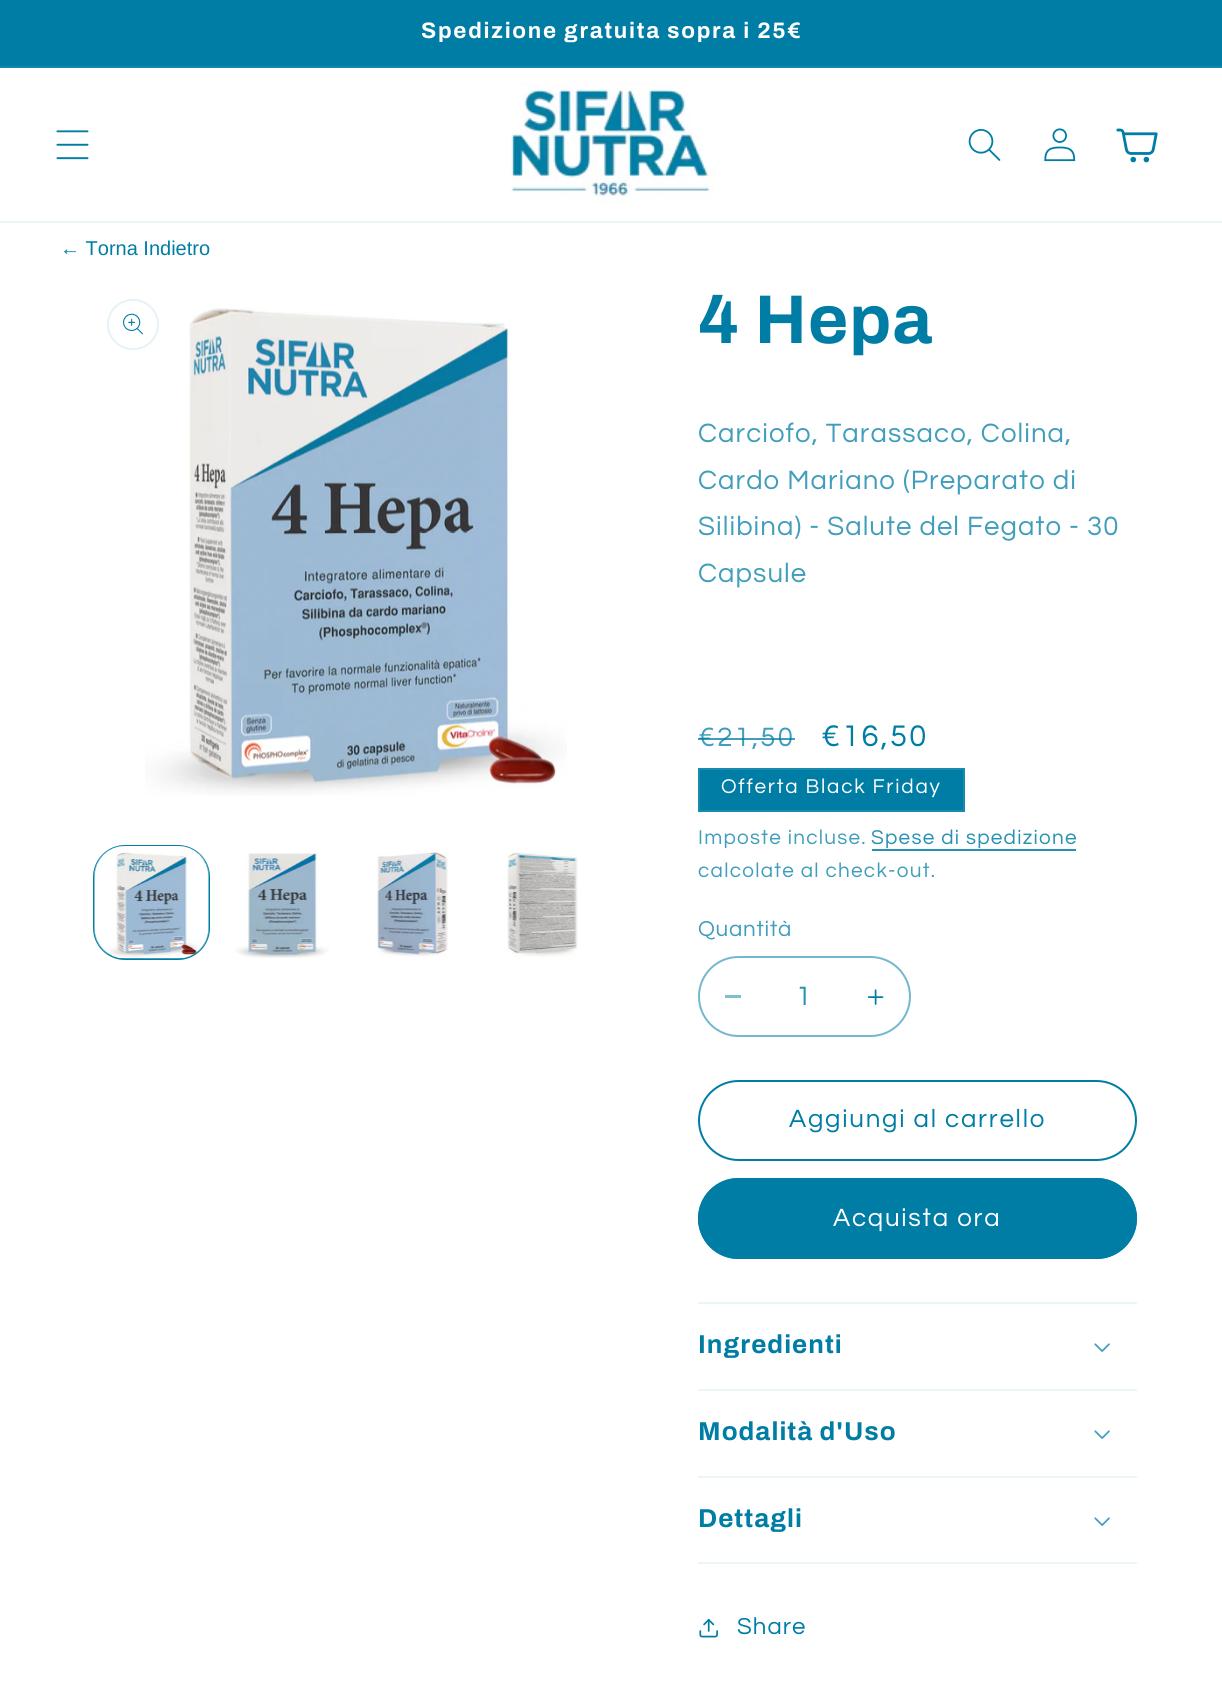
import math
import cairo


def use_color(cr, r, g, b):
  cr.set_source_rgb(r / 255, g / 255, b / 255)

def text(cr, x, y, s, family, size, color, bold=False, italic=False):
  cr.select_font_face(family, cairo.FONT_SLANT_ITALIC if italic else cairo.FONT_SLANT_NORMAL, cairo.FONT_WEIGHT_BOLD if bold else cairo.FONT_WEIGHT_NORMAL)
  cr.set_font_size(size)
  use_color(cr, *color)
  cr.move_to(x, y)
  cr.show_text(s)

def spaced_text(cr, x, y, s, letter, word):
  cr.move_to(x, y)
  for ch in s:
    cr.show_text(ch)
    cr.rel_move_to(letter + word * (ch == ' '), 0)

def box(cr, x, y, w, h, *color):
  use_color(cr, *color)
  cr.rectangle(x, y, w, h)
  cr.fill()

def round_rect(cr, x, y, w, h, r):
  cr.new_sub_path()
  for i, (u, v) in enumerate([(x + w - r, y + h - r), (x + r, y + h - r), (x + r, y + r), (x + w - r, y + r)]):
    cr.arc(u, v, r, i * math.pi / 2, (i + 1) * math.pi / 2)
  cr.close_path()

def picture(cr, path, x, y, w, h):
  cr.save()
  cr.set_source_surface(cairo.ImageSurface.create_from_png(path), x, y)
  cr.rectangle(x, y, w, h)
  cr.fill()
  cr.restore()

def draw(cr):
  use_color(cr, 255, 255, 255)
  cr.paint()
  box(cr, 0, 0, 1222, 66, 0, 125, 165)
  box(cr, 0, 66, 1222, 2, 20, 135, 172)
  box(cr, 0, 221, 1222, 2, 235, 245, 248)
  picture(cr, "img_01.png", 56, 130, 33, 30)
  picture(cr, "img_02.png", 510, 82, 204, 121)
  picture(cr, "img_03.png", 968, 129, 33, 32)
  picture(cr, "img_04.png", 1044, 128, 32, 34)
  picture(cr, "img_05.png", 1116, 128, 42, 35)
  picture(cr, "img_07.png", 145, 308, 422, 488)
  round_rect(cr, 108, 300, 50, 49, 24.5)
  use_color(cr, 230, 242, 246)
  cr.stroke()
  picture(cr, "img_06.png", 123, 313, 20, 22)
  round_rect(cr, 94, 846, 115, 113, 31)
  use_color(cr, 0, 125, 165)
  cr.stroke()
  picture(cr, "img_08.png", 94, 846, 115, 113)
  picture(cr, "img_09.png", 235, 852, 94, 106)
  picture(cr, "img_10.png", 377, 852, 71, 105)
  picture(cr, "img_11.png", 507, 852, 71, 105)
  cr.rectangle(699, 769, 265, 42)
  cr.fill_preserve()
  use_color(cr, 26, 138, 174)
  cr.stroke()
  box(cr, 872, 849, 204, 2, 38, 145, 179)
  box(cr, 725, 995, 16, 3, 128, 190, 210)
  picture(cr, "img_12.png", 867, 989, 17, 16)
  round_rect(cr, 699, 957, 211, 79, 39.5)
  use_color(cr, 115, 184, 206)
  cr.stroke()
  round_rect(cr, 699, 1081, 437, 79, 39.5)
  use_color(cr, 0, 125, 165)
  cr.stroke()
  round_rect(cr, 698, 1178, 439, 81, 40.5)
  cr.fill()
  round_rect(cr, 699, 1179, 437, 79, 39.5)
  cr.stroke()
  box(cr, 698, 1302, 439, 2, 235, 245, 248)
  box(cr, 698, 1389, 439, 2, 235, 245, 248)
  picture(cr, "img_13.png", 1094, 1343, 16, 9)
  box(cr, 698, 1476, 439, 2, 235, 245, 248)
  picture(cr, "img_13.png", 1094, 1430, 16, 9)
  box(cr, 698, 1562, 439, 2, 235, 245, 248)
  picture(cr, "img_13.png", 1094, 1517, 16, 9)
  picture(cr, "img_14.png", 699, 1619, 19, 19)
  cr.select_font_face("Archivo", cairo.FONT_SLANT_NORMAL, cairo.FONT_WEIGHT_BOLD)
  cr.set_font_size(22.4)
  use_color(cr, 255, 255, 255)
  spaced_text(cr, 421, 38, "Spedizione gratuita sopra i 25€", 1.75, 0)
  text(cr, 60, 255, "← Torna Indietro", "Liberation Sans", 20, (0, 125, 165))
  cr.select_font_face("Archivo", cairo.FONT_SLANT_NORMAL, cairo.FONT_WEIGHT_BOLD)
  cr.set_font_size(69)
  spaced_text(cr, 698, 343, "4 Hepa", 1.05, 0)
  cr.select_font_face("Questrial")
  cr.set_font_size(27.6)
  use_color(cr, 64, 158, 188)
  spaced_text(cr, 698, 442, "Carciofo, Tarassaco, Colina,", 1.05, 0)
  spaced_text(cr, 698, 489, "Cardo Mariano (Preparato di", 1.05, 0)
  spaced_text(cr, 698, 535, "Silibina) - Salute del Fegato - 30", 1.05, 0)
  spaced_text(cr, 698, 582, "Capsule", 1.05, 0)
  spaced_text(cr, 698, 746, "€21,50", 2.25, 0)
  cr.set_source_rgba(0, 0.49, 0.647, 0.75)
  cr.rectangle(698, 738, 97, 2)
  cr.fill()
  cr.set_font_size(31)
  use_color(cr, 0, 125, 165)
  spaced_text(cr, 821, 746, "€16,50", 2.25, 0)
  cr.set_font_size(20.75)
  use_color(cr, 255, 255, 255)
  spaced_text(cr, 721, 793, "Offerta Black Friday", 1.75, 0)
  use_color(cr, 64, 158, 188)
  spaced_text(cr, 698, 844, "Imposte incluse.", 1.25, 0)
  use_color(cr, 38, 145, 179)
  spaced_text(cr, 871, 844, "Spese di spedizione", 1.25, 0)
  use_color(cr, 64, 158, 188)
  spaced_text(cr, 698, 877, "calcolate al check-out.", 1.25, 0)
  cr.set_font_size(22.4)
  spaced_text(cr, 698, 936, "Quantità", 0.75, 0)
  text(cr, 796, 1005, "1", "Questrial", 27.6, (38, 145, 179))
  cr.set_font_size(25.9)
  use_color(cr, 0, 125, 165)
  spaced_text(cr, 789, 1127, "Aggiungi al carrello", 1.75, 0)
  use_color(cr, 255, 255, 255)
  spaced_text(cr, 833, 1226, "Acquista ora", 1.75, 0)
  cr.select_font_face("Archivo", cairo.FONT_SLANT_NORMAL, cairo.FONT_WEIGHT_BOLD)
  use_color(cr, 0, 125, 165)
  spaced_text(cr, 698, 1353, "Ingredienti", 1.05, 0)
  spaced_text(cr, 698, 1440, "Modalità d'Uso", 1.05, 0)
  spaced_text(cr, 698, 1527, "Dettagli", 1.05, 0)
  cr.select_font_face("Questrial")
  cr.set_font_size(24)
  spaced_text(cr, 737, 1634, "Share", 1.05, 0)


surface = cairo.ImageSurface(cairo.FORMAT_RGB24, 1222, 1691)
cr = cairo.Context(surface)
options = cairo.FontOptions()
options.set_hint_metrics(cairo.HINT_METRICS_OFF)
options.set_hint_style(cairo.HINT_STYLE_NONE)
cr.set_font_options(options)
cr.set_miter_limit(4)
draw(cr)
surface.write_to_png("out.png")
